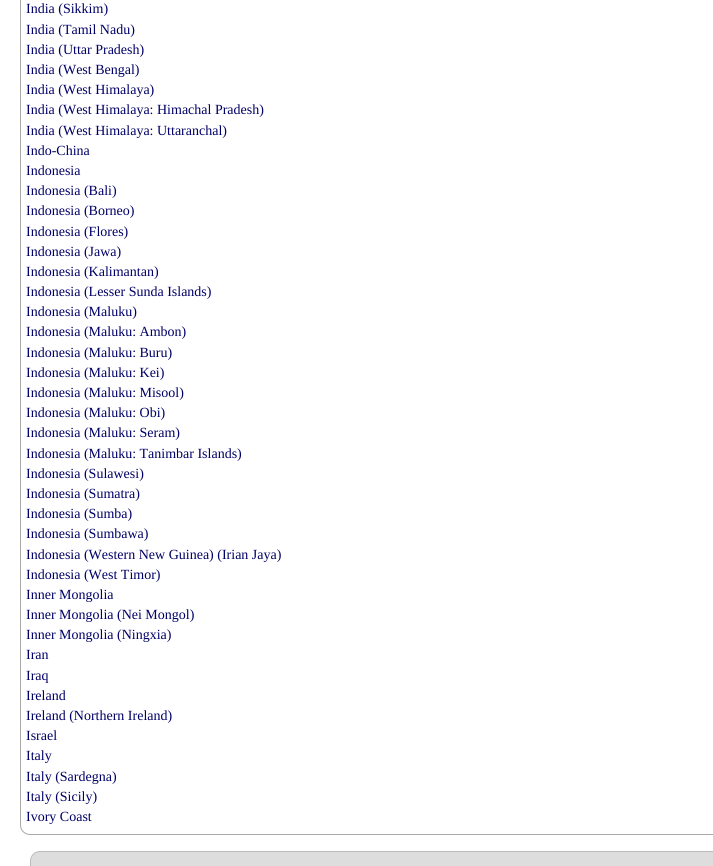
import math
import cairo


def use_color(cr, r, g, b):
  cr.set_source_rgb(r / 255, g / 255, b / 255)

def text(cr, x, y, s, family, size, color, bold=False, italic=False):
  cr.select_font_face(family, cairo.FONT_SLANT_ITALIC if italic else cairo.FONT_SLANT_NORMAL, cairo.FONT_WEIGHT_BOLD if bold else cairo.FONT_WEIGHT_NORMAL)
  cr.set_font_size(size)
  use_color(cr, *color)
  cr.move_to(x, y)
  cr.show_text(s)

def round_rect(cr, x, y, w, h, r):
  cr.new_sub_path()
  for i, (u, v) in enumerate([(x + w - r, y + h - r), (x + r, y + h - r), (x + r, y + r), (x + w - r, y + r)]):
    cr.arc(u, v, r, i * math.pi / 2, (i + 1) * math.pi / 2)
  cr.close_path()

def draw(cr):
  use_color(cr, 255, 255, 255)
  cr.paint()
  round_rect(cr, 20.5, -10.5, 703, 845, 9.5)
  use_color(cr, 169, 169, 169)
  cr.set_line_width(1)
  cr.stroke()
  use_color(cr, 221, 221, 221)
  round_rect(cr, 30.5, 851.5, 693, 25, 9.5)
  cr.fill_preserve()
  use_color(cr, 187, 187, 187)
  cr.stroke()
  text(cr, 26, 13, "India (Sikkim)", "Liberation Serif", 14, (0, 0, 102))
  text(cr, 26, 34, "India (Tamil Nadu)", "Liberation Serif", 14, (0, 0, 102))
  text(cr, 26, 54, "India (Uttar Pradesh)", "Liberation Serif", 14, (0, 0, 102))
  text(cr, 26, 74, "India (West Bengal)", "Liberation Serif", 14, (0, 0, 102))
  text(cr, 26, 94, "India (West Himalaya)", "Liberation Serif", 14, (0, 0, 102))
  text(cr, 26, 114, "India (West Himalaya: Himachal Pradesh)", "Liberation Serif", 14, (0, 0, 102))
  text(cr, 26, 135, "India (West Himalaya: Uttaranchal)", "Liberation Serif", 14, (0, 0, 102))
  text(cr, 26, 155, "Indo-China", "Liberation Serif", 14, (0, 0, 102))
  text(cr, 26, 175, "Indonesia", "Liberation Serif", 14, (0, 0, 102))
  text(cr, 26, 195, "Indonesia (Bali)", "Liberation Serif", 14, (0, 0, 102))
  text(cr, 26, 215, "Indonesia (Borneo)", "Liberation Serif", 14, (0, 0, 102))
  text(cr, 26, 236, "Indonesia (Flores)", "Liberation Serif", 14, (0, 0, 102))
  text(cr, 26, 256, "Indonesia (Jawa)", "Liberation Serif", 14, (0, 0, 102))
  text(cr, 26, 276, "Indonesia (Kalimantan)", "Liberation Serif", 14, (0, 0, 102))
  text(cr, 26, 296, "Indonesia (Lesser Sunda Islands)", "Liberation Serif", 14, (0, 0, 102))
  text(cr, 26, 316, "Indonesia (Maluku)", "Liberation Serif", 14, (0, 0, 102))
  text(cr, 26, 336, "Indonesia (Maluku: Ambon)", "Liberation Serif", 14, (0, 0, 102))
  text(cr, 26, 357, "Indonesia (Maluku: Buru)", "Liberation Serif", 14, (0, 0, 102))
  text(cr, 26, 377, "Indonesia (Maluku: Kei)", "Liberation Serif", 14, (0, 0, 102))
  text(cr, 26, 397, "Indonesia (Maluku: Misool)", "Liberation Serif", 14, (0, 0, 102))
  text(cr, 26, 417, "Indonesia (Maluku: Obi)", "Liberation Serif", 14, (0, 0, 102))
  text(cr, 26, 437, "Indonesia (Maluku: Seram)", "Liberation Serif", 14, (0, 0, 102))
  text(cr, 26, 458, "Indonesia (Maluku: Tanimbar Islands)", "Liberation Serif", 14, (0, 0, 102))
  text(cr, 26, 478, "Indonesia (Sulawesi)", "Liberation Serif", 14, (0, 0, 102))
  text(cr, 26, 498, "Indonesia (Sumatra)", "Liberation Serif", 14, (0, 0, 102))
  text(cr, 26, 518, "Indonesia (Sumba)", "Liberation Serif", 14, (0, 0, 102))
  text(cr, 26, 538, "Indonesia (Sumbawa)", "Liberation Serif", 14, (0, 0, 102))
  text(cr, 26, 559, "Indonesia (Western New Guinea) (Irian Jaya)", "Liberation Serif", 14, (0, 0, 102))
  text(cr, 26, 579, "Indonesia (West Timor)", "Liberation Serif", 14, (0, 0, 102))
  text(cr, 26, 599, "Inner Mongolia", "Liberation Serif", 14, (0, 0, 102))
  text(cr, 26, 619, "Inner Mongolia (Nei Mongol)", "Liberation Serif", 14, (0, 0, 102))
  text(cr, 26, 639, "Inner Mongolia (Ningxia)", "Liberation Serif", 14, (0, 0, 102))
  text(cr, 26, 659, "Iran", "Liberation Serif", 14, (0, 0, 102))
  text(cr, 26, 680, "Iraq", "Liberation Serif", 14, (0, 0, 102))
  text(cr, 26, 700, "Ireland", "Liberation Serif", 14, (0, 0, 102))
  text(cr, 26, 720, "Ireland (Northern Ireland)", "Liberation Serif", 14, (0, 0, 102))
  text(cr, 26, 740, "Israel", "Liberation Serif", 14, (0, 0, 102))
  text(cr, 26, 760, "Italy", "Liberation Serif", 14, (0, 0, 102))
  text(cr, 26, 781, "Italy (Sardegna)", "Liberation Serif", 14, (0, 0, 102))
  text(cr, 26, 801, "Italy (Sicily)", "Liberation Serif", 14, (0, 0, 102))
  text(cr, 26, 821, "Ivory Coast", "Liberation Serif", 14, (0, 0, 102))


surface = cairo.ImageSurface(cairo.FORMAT_RGB24, 713, 866)
cr = cairo.Context(surface)
options = cairo.FontOptions()
options.set_hint_metrics(cairo.HINT_METRICS_OFF)
options.set_hint_style(cairo.HINT_STYLE_NONE)
cr.set_font_options(options)
cr.set_miter_limit(4)
draw(cr)
surface.write_to_png("out.png")
